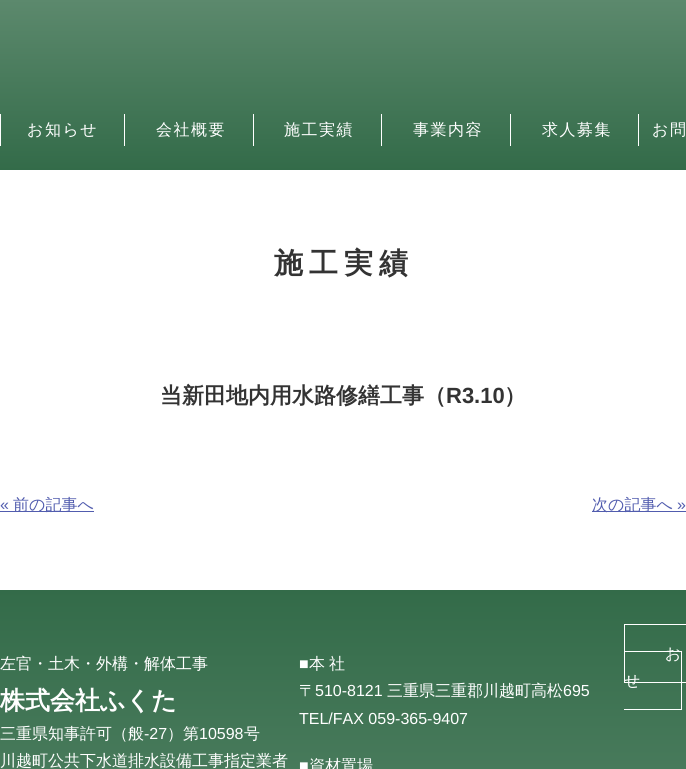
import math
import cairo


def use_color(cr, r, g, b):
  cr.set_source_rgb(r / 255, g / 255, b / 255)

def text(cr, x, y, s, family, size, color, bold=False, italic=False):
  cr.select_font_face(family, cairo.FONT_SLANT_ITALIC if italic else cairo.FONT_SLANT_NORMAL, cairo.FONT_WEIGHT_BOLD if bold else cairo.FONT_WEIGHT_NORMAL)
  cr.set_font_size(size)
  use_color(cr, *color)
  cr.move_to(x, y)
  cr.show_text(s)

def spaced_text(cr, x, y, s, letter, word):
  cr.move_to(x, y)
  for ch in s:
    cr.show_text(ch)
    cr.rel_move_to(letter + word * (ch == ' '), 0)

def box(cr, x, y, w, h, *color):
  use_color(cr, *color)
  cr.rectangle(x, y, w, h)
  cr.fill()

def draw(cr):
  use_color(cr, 255, 255, 255)
  cr.paint()
  gradient = cairo.LinearGradient(343, 0, 343, 170)
  gradient.add_color_stop_rgba(0, 0.361, 0.537, 0.427, 1)
  gradient.add_color_stop_rgba(1, 0.2, 0.42, 0.286, 1)
  cr.set_source(gradient)
  cr.rectangle(0, 0, 686, 170)
  cr.fill()
  box(cr, 124, 114, 1, 32, 255, 255, 255)
  box(cr, 0, 114, 1, 32, 255, 255, 255)
  box(cr, 253, 114, 1, 32, 255, 255, 255)
  box(cr, 381, 114, 1, 32, 255, 255, 255)
  box(cr, 510, 114, 1, 32, 255, 255, 255)
  box(cr, 638, 114, 1, 32, 255, 255, 255)
  box(cr, 0, 511, 94, 1, 81, 92, 174)
  box(cr, 592, 511, 94, 1, 81, 92, 174)
  gradient = cairo.LinearGradient(343, 590, 343, 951)
  gradient.add_color_stop_rgba(0, 0.2, 0.42, 0.286, 1)
  gradient.add_color_stop_rgba(1, 0.361, 0.537, 0.427, 1)
  cr.set_source(gradient)
  cr.rectangle(0, 590, 686, 179)
  cr.fill()
  box(cr, 624, 624, 62, 1, 255, 255, 255)
  box(cr, 624, 682, 62, 1, 255, 255, 255)
  box(cr, 624, 624, 1, 59, 255, 255, 255)
  box(cr, 624, 651, 58, 1, 255, 255, 255)
  box(cr, 681, 651, 1, 59, 255, 255, 255)
  box(cr, 624, 709, 58, 1, 255, 255, 255)
  cr.select_font_face("WenQuanYi Zen Hei Medium")
  cr.set_font_size(16)
  spaced_text(cr, 27, 135, "お知らせ", 1.5, 0)
  spaced_text(cr, 156, 135, "会社概要", 1.5, 0)
  spaced_text(cr, 284, 135, "施工実績", 1.5, 0)
  spaced_text(cr, 413, 135, "事業内容", 1.5, 0)
  spaced_text(cr, 542, 135, "求人募集", 1.5, 0)
  spaced_text(cr, 652, 135, "お問", 1.5, 0)
  cr.select_font_face("WenQuanYi Zen Hei", cairo.FONT_SLANT_NORMAL, cairo.FONT_WEIGHT_BOLD)
  cr.set_font_size(29)
  use_color(cr, 51, 51, 51)
  spaced_text(cr, 274, 273, "施工実績", 6, 0)
  text(cr, 160, 403, "当新田地内用水路修繕工事（", "WenQuanYi Zen Hei", 22, (51, 51, 51), bold=True)
  text(cr, 446, 403, "R3.10", "Liberation Sans", 22, (51, 51, 51), bold=True)
  text(cr, 504, 403, "）", "WenQuanYi Zen Hei", 22, (51, 51, 51), bold=True)
  text(cr, 0, 510, "«", "Liberation Sans", 16, (81, 92, 174))
  text(cr, 13, 510, "前の記事へ", "WenQuanYi Zen Hei Medium", 16, (81, 92, 174))
  text(cr, 592, 510, "次の記事へ", "WenQuanYi Zen Hei Medium", 16, (81, 92, 174))
  text(cr, 677, 510, "»", "Liberation Sans", 16, (81, 92, 174))
  text(cr, 0, 669, "左官・土木・外構・解体工事", "WenQuanYi Zen Hei Medium", 16, (255, 255, 255))
  text(cr, 0, 709, "株式会社ふくた", "WenQuanYi Zen Hei", 25, (255, 255, 255), bold=True)
  text(cr, 0, 739, "三重県知事許可（般", "WenQuanYi Zen Hei Medium", 16, (255, 255, 255))
  text(cr, 144, 739, "-27", "Liberation Sans", 16, (255, 255, 255))
  text(cr, 167, 739, "）第", "WenQuanYi Zen Hei Medium", 16, (255, 255, 255))
  text(cr, 199, 739, "10598", "Liberation Sans", 16, (255, 255, 255))
  text(cr, 244, 739, "号", "WenQuanYi Zen Hei Medium", 16, (255, 255, 255))
  text(cr, 0, 766, "川越町公共下水道排水設備工事指定業者", "WenQuanYi Zen Hei Medium", 16, (255, 255, 255))
  text(cr, 299, 669, "■", "Liberation Sans", 16, (255, 255, 255))
  text(cr, 309, 669, "本", "WenQuanYi Zen Hei Medium", 16, (255, 255, 255))
  text(cr, 329, 669, "社", "WenQuanYi Zen Hei Medium", 16, (255, 255, 255))
  text(cr, 299, 696, "〒", "WenQuanYi Zen Hei Medium", 16, (255, 255, 255))
  text(cr, 315, 696, "510-8121", "Liberation Sans", 16, (255, 255, 255))
  text(cr, 387, 696, "三重県三重郡川越町高松", "WenQuanYi Zen Hei Medium", 16, (255, 255, 255))
  text(cr, 563, 696, "695", "Liberation Sans", 16, (255, 255, 255))
  text(cr, 299, 724, "TEL/FAX 059-365-9407", "Liberation Sans", 16, (255, 255, 255))
  text(cr, 299, 771, "■", "Liberation Sans", 16, (255, 255, 255))
  text(cr, 309, 771, "資材置場", "WenQuanYi Zen Hei Medium", 16, (255, 255, 255))
  text(cr, 665, 659, "お", "WenQuanYi Zen Hei Medium", 16, (255, 255, 255))
  text(cr, 624, 686, "せ", "WenQuanYi Zen Hei Medium", 16, (255, 255, 255))


surface = cairo.ImageSurface(cairo.FORMAT_RGB24, 686, 769)
cr = cairo.Context(surface)
options = cairo.FontOptions()
options.set_hint_metrics(cairo.HINT_METRICS_OFF)
options.set_hint_style(cairo.HINT_STYLE_NONE)
cr.set_font_options(options)
cr.set_miter_limit(4)
draw(cr)
surface.write_to_png("out.png")
